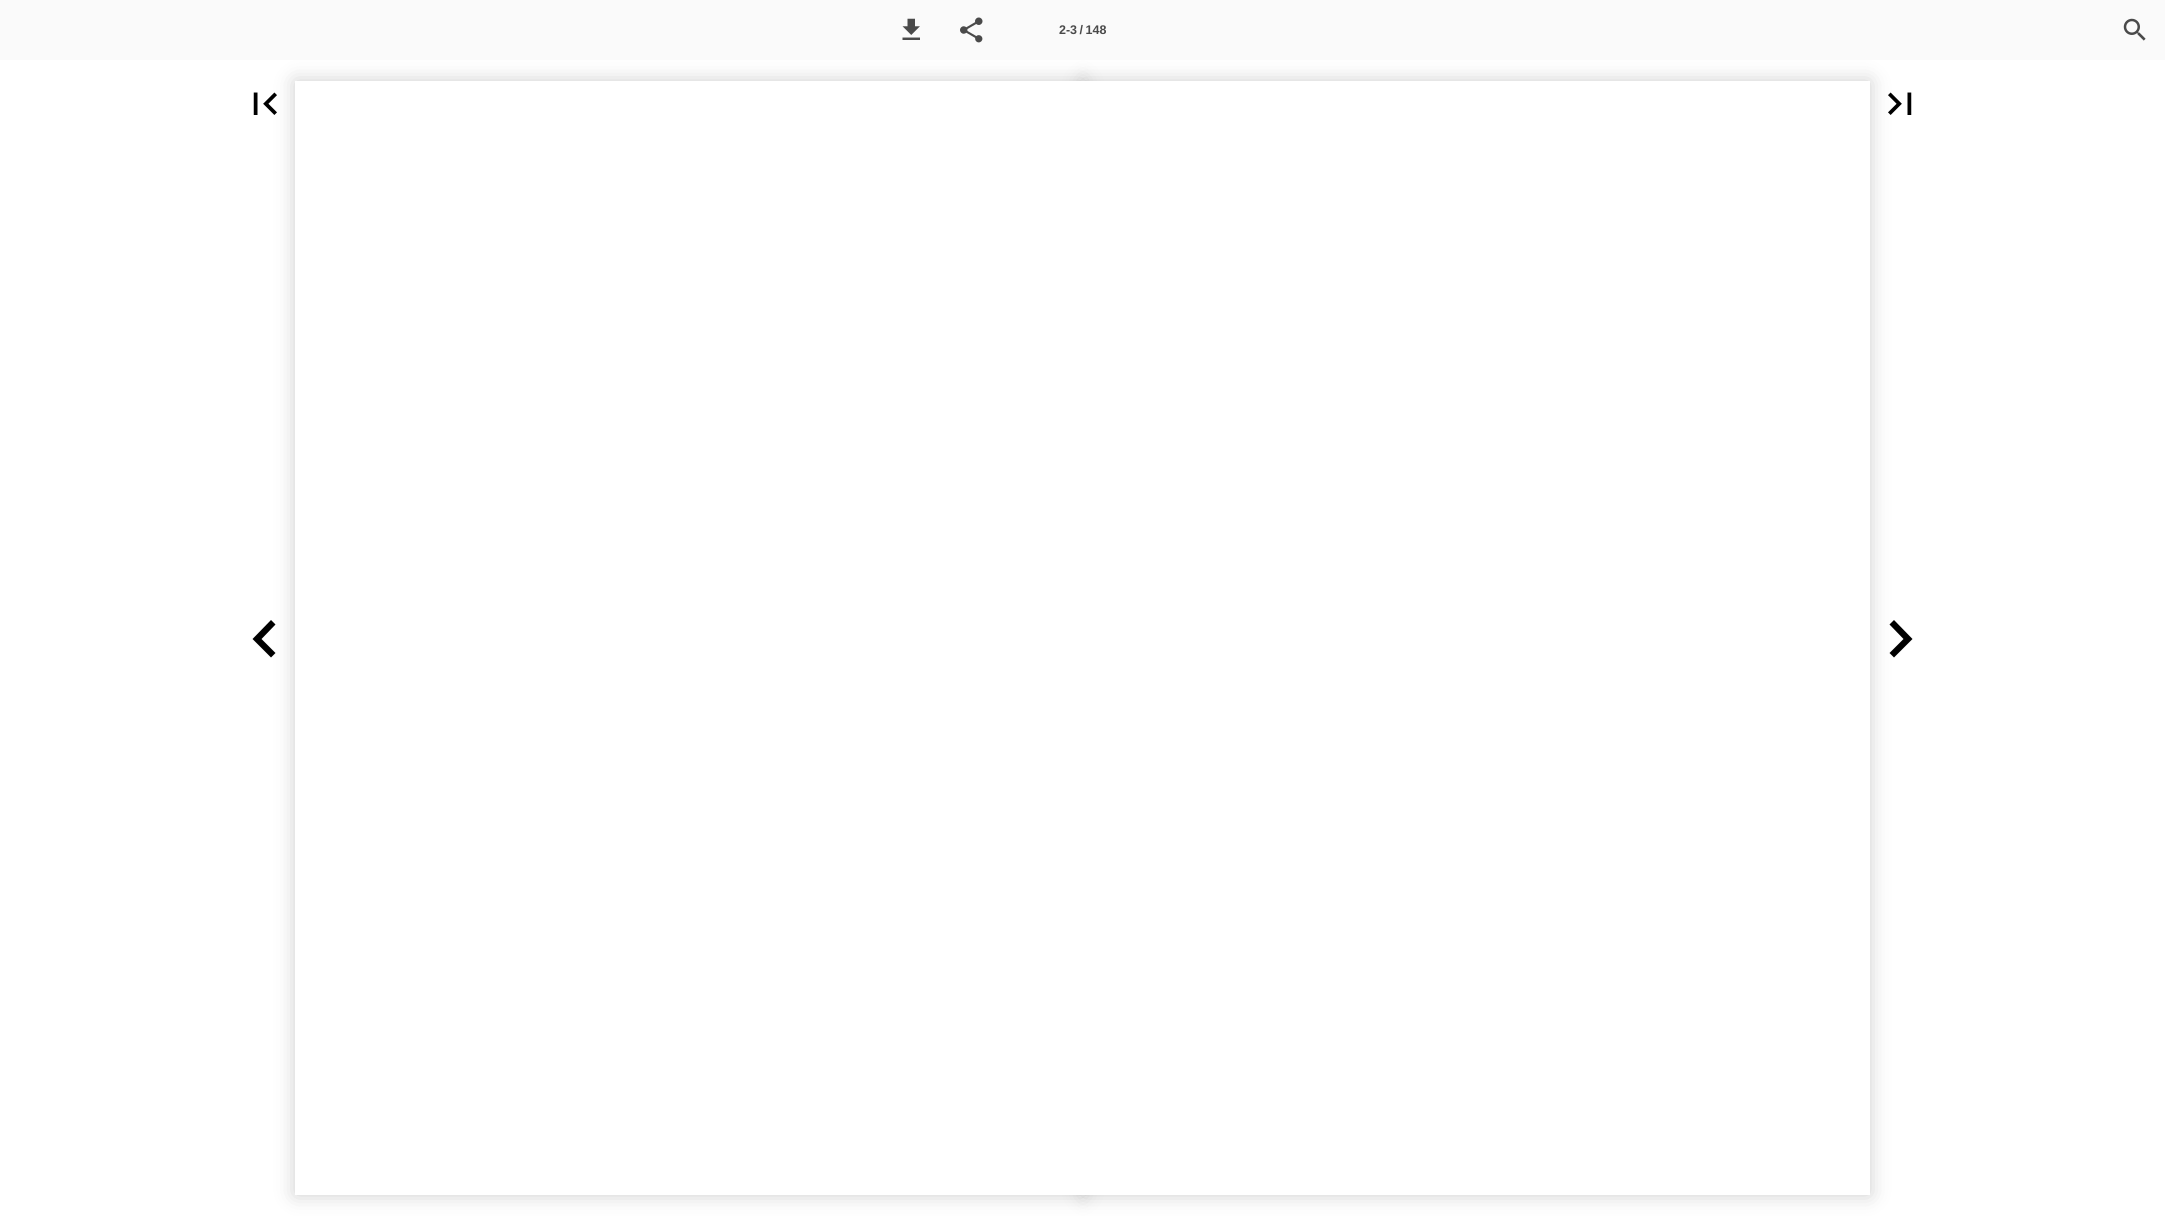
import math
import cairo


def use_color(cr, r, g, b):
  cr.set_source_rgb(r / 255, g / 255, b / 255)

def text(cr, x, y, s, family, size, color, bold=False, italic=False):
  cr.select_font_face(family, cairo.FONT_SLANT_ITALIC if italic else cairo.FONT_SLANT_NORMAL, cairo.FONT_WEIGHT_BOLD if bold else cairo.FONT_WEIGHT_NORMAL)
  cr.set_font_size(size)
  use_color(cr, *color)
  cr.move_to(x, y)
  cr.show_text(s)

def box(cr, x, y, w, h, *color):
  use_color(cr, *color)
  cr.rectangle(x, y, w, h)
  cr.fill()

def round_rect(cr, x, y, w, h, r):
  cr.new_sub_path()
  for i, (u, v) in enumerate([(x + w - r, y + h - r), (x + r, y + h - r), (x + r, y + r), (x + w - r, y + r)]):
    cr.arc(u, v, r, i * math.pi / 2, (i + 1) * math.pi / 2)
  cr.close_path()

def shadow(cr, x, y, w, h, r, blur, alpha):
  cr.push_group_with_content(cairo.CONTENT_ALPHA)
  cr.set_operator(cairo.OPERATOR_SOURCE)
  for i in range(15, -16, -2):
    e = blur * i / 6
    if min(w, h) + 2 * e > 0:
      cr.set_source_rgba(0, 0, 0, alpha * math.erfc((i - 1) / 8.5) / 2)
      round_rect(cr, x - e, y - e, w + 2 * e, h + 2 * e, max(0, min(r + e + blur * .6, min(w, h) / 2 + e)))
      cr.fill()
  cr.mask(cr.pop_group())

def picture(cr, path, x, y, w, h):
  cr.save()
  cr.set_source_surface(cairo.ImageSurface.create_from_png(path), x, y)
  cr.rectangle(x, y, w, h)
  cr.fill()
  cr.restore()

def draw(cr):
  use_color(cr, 255, 255, 255)
  cr.paint()
  use_color(cr, 0, 0, 0)
  shadow(cr, 295, 81, 788, 1114, 0, 10, 0.2)
  shadow(cr, 1083, 81, 787, 1114, 0, 10, 0.2)
  box(cr, 0, 0, 2165, 60, 250, 250, 250)
  picture(cr, "img_01.png", 902, 18, 18, 22)
  picture(cr, "img_02.png", 960, 17, 23, 26)
  picture(cr, "img_03.png", 2123, 18, 23, 23)
  box(cr, 295, 81, 1575, 1114, 255, 255, 255)
  picture(cr, "img_04.png", 253, 92, 24, 23)
  use_color(cr, 0, 0, 0)
  cr.new_path()
  cr.move_to(275.5, 624.5)
  cr.line_to(271, 620)
  cr.line_to(252.5, 639)
  cr.line_to(271, 657.5)
  cr.line_to(275.5, 653)
  cr.line_to(261.5, 639)
  cr.close_path()
  cr.fill()
  picture(cr, "img_05.png", 1888, 92, 24, 23)
  cr.new_path()
  cr.move_to(1894, 620)
  cr.line_to(1889.5, 624.5)
  cr.line_to(1903.5, 639)
  cr.line_to(1889.5, 653)
  cr.line_to(1894, 657.5)
  cr.line_to(1912.5, 639)
  cr.close_path()
  cr.fill()
  text(cr, 1059, 34, "2-3 / 148", "Liberation Sans", 12.5, (74, 74, 74), bold=True)


surface = cairo.ImageSurface(cairo.FORMAT_RGB24, 2165, 1216)
cr = cairo.Context(surface)
options = cairo.FontOptions()
options.set_hint_metrics(cairo.HINT_METRICS_OFF)
options.set_hint_style(cairo.HINT_STYLE_NONE)
cr.set_font_options(options)
cr.set_miter_limit(4)
draw(cr)
surface.write_to_png("out.png")
